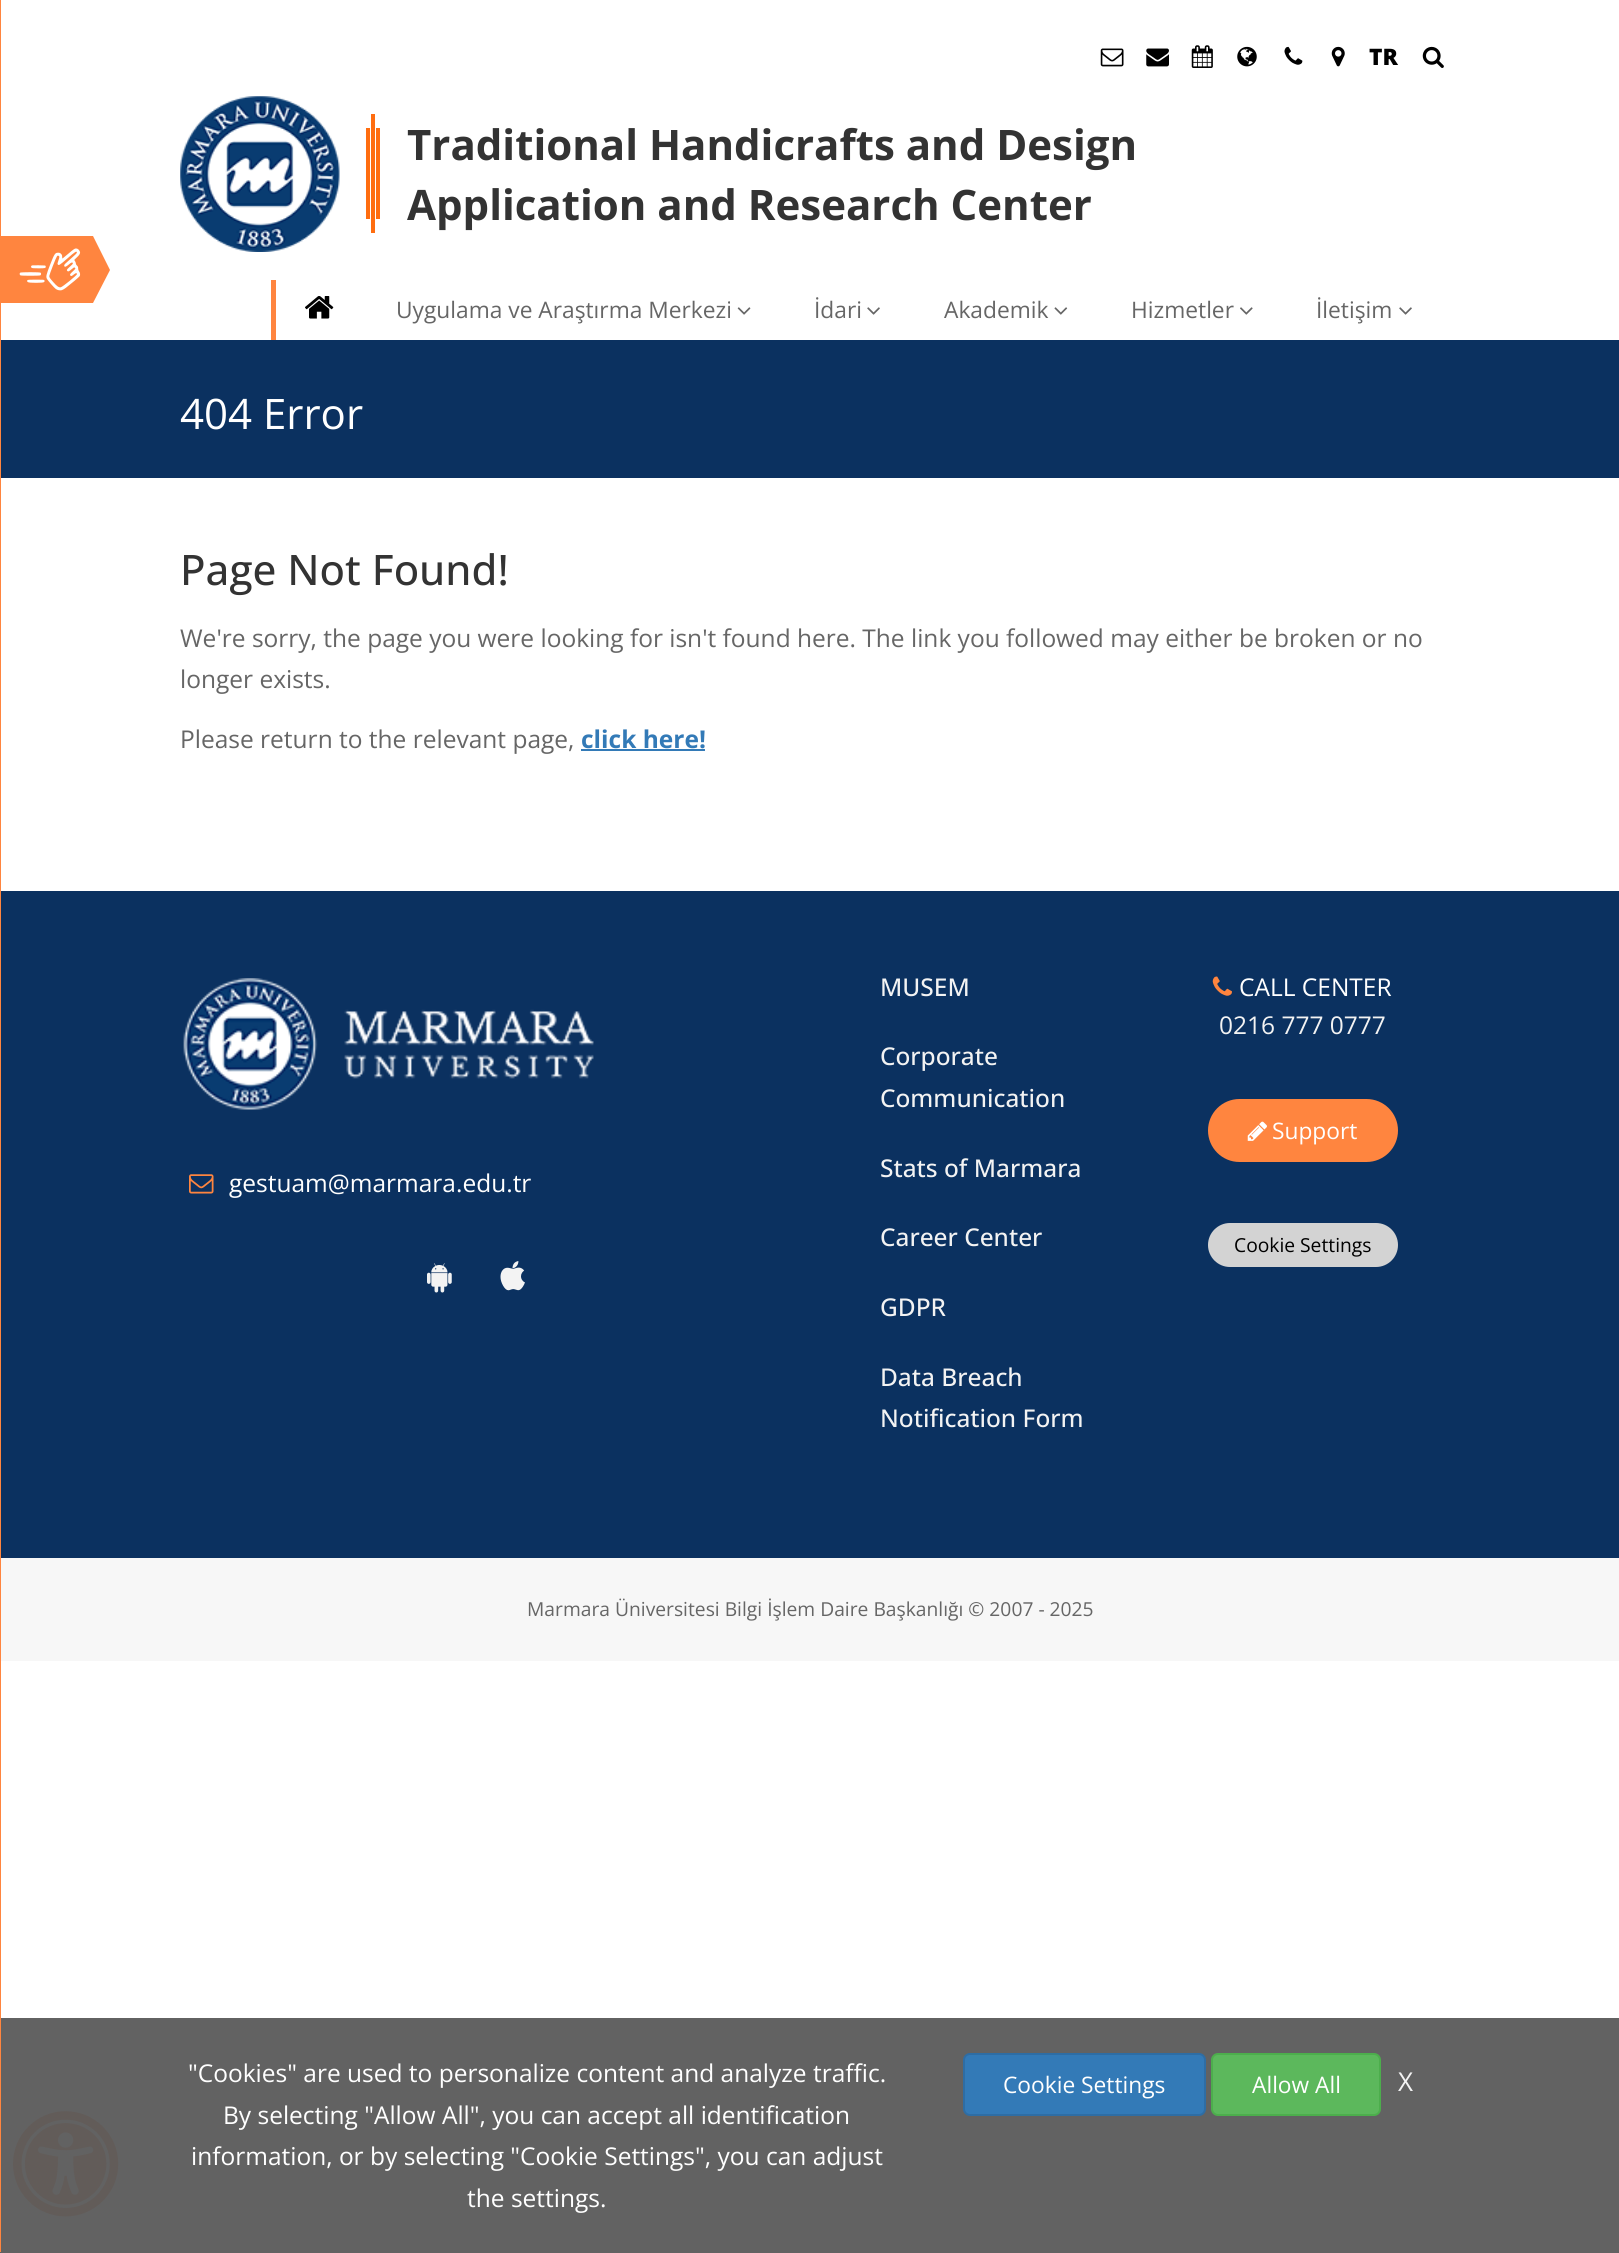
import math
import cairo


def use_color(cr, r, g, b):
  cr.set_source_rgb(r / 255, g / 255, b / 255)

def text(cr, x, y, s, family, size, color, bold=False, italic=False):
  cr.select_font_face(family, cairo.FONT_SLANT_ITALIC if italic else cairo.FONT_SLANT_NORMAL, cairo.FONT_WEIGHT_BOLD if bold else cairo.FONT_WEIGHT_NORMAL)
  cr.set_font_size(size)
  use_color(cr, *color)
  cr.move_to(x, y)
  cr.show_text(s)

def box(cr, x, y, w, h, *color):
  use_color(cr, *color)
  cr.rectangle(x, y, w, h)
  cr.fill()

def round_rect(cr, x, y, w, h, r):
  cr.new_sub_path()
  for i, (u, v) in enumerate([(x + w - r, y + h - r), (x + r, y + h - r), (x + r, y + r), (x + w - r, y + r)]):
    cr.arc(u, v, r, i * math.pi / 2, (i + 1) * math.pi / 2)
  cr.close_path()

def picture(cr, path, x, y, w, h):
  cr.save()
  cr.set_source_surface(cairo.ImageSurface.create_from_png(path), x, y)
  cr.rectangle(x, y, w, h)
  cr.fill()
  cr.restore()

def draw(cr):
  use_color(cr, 255, 255, 255)
  cr.paint()
  box(cr, 0, 2018, 1619, 235, 98, 98, 98)
  box(cr, 0, 0, 1, 2252, 255, 133, 63)
  box(cr, 1, 236, 92, 67, 255, 133, 63)
  picture(cr, "img_01.png", 19, 248, 62, 43)
  cr.new_path()
  cr.move_to(93, 303)
  cr.line_to(93, 236)
  cr.line_to(110, 270)
  cr.close_path()
  cr.fill()
  picture(cr, "img_02.png", 1100, 48, 24, 19)
  picture(cr, "img_03.png", 1146, 48, 23, 19)
  picture(cr, "img_04.png", 1191, 45, 22, 23)
  picture(cr, "img_05.png", 1237, 46, 20, 21)
  picture(cr, "img_06.png", 1284, 46, 19, 19)
  picture(cr, "img_07.png", 1331, 46, 14, 21)
  picture(cr, "img_08.png", 1422, 46, 22, 22)
  picture(cr, "img_09.png", 180, 96, 160, 156)
  box(cr, 366, 128, 4, 91, 255, 109, 16)
  box(cr, 371, 114, 4, 119, 255, 109, 16)
  box(cr, 376, 128, 4, 91, 255, 109, 16)
  box(cr, 271, 280, 5, 60, 255, 133, 63)
  picture(cr, "img_10.png", 305, 296, 29, 23)
  picture(cr, "img_11.png", 737, 307, 14, 8)
  picture(cr, "img_12.png", 867, 307, 13, 8)
  picture(cr, "img_13.png", 1054, 307, 14, 8)
  picture(cr, "img_14.png", 1240, 307, 13, 8)
  picture(cr, "img_12.png", 1399, 307, 13, 8)
  box(cr, 1, 340, 1618, 138, 11, 49, 96)
  box(cr, 581, 749, 124, 2, 51, 122, 183)
  box(cr, 1, 891, 1618, 667, 11, 49, 96)
  picture(cr, "img_15.png", 183, 978, 411, 132)
  picture(cr, "img_16.png", 189, 1174, 25, 20)
  picture(cr, "img_17.png", 427, 1263, 25, 30)
  picture(cr, "img_18.png", 500, 1261, 25, 30)
  picture(cr, "img_19.png", 1212, 976, 20, 20)
  use_color(cr, 255, 133, 63)
  round_rect(cr, 1208, 1099, 190, 63, 31.5)
  cr.fill()
  picture(cr, "img_20.png", 1247, 1121, 20, 20)
  use_color(cr, 211, 211, 211)
  round_rect(cr, 1208, 1223, 190, 44, 22)
  cr.fill()
  box(cr, 1, 1558, 1618, 103, 247, 247, 247)
  picture(cr, "img_21.png", 13, 2111, 106, 106)
  use_color(cr, 51, 122, 183)
  round_rect(cr, 964, 2054, 241, 61, 6)
  cr.fill_preserve()
  use_color(cr, 46, 109, 164)
  cr.stroke()
  use_color(cr, 92, 184, 92)
  round_rect(cr, 1212, 2054, 168, 61, 6)
  cr.fill_preserve()
  use_color(cr, 76, 174, 76)
  cr.stroke()
  text(cr, 1369, 65, "TR", "Open Sans ExtraBold", 22.75, (0, 0, 0))
  text(cr, 407, 160, "Traditional Handicrafts and Design", "Open Sans", 42, (51, 51, 51), bold=True)
  text(cr, 407, 220, "Application and Research Center", "Open Sans", 42, (51, 51, 51), bold=True)
  text(cr, 396, 318, "Uygulama ve Araştırma Merkezi", "Open Sans", 22.75, (102, 102, 102))
  text(cr, 814, 318, "İdari", "Open Sans", 22.75, (102, 102, 102))
  text(cr, 944, 318, "Akademik", "Open Sans", 22.75, (102, 102, 102))
  text(cr, 1131, 318, "Hizmetler", "Open Sans", 22.75, (102, 102, 102))
  text(cr, 1316, 318, "İletişim", "Open Sans", 22.75, (102, 102, 102))
  text(cr, 180, 429, "404 Error", "Open Sans", 42, (255, 255, 255))
  text(cr, 180, 585, "Page Not Found!", "Open Sans Medium", 42, (51, 51, 51))
  text(cr, 180, 647, "We're sorry, the page you were looking for isn't found here. The link you followed may either be broken or no", "Open Sans", 24.5, (102, 102, 102))
  text(cr, 180, 688, "longer exists.", "Open Sans", 24.5, (102, 102, 102))
  text(cr, 180, 748, "Please return to the relevant page,", "Open Sans", 24.5, (102, 102, 102))
  text(cr, 581, 748, "click here!", "Open Sans", 24.5, (51, 122, 183), bold=True)
  text(cr, 229, 1192, "gestuam@marmara.edu.tr", "Open Sans", 24.5, (255, 255, 255))
  text(cr, 880, 996, "MUSEM", "Open Sans Medium", 24.5, (243, 243, 243))
  text(cr, 880, 1065, "Corporate", "Open Sans Medium", 24.5, (243, 243, 243))
  text(cr, 880, 1107, "Communication", "Open Sans Medium", 24.5, (243, 243, 243))
  text(cr, 880, 1177, "Stats of Marmara", "Open Sans Medium", 24.5, (243, 243, 243))
  text(cr, 880, 1246, "Career Center", "Open Sans Medium", 24.5, (243, 243, 243))
  text(cr, 880, 1316, "GDPR", "Open Sans Medium", 24.5, (243, 243, 243))
  text(cr, 880, 1386, "Data Breach", "Open Sans Medium", 24.5, (243, 243, 243))
  text(cr, 880, 1427, "Notification Form", "Open Sans Medium", 24.5, (243, 243, 243))
  text(cr, 1239, 996, "CALL CENTER", "Open Sans", 24.5, (255, 255, 255))
  text(cr, 1219, 1034, "0216 777 0777", "Open Sans", 24.5, (243, 243, 243))
  text(cr, 1272, 1139, "Support", "Open Sans", 22.75, (255, 255, 255))
  text(cr, 1234, 1252, "Cookie Settings", "Open Sans", 19.25, (0, 0, 0))
  text(cr, 527, 1616, "Marmara Üniversitesi Bilgi İşlem Daire Başkanlığı © 2007 - 2025", "Open Sans", 19.25, (102, 102, 102))
  text(cr, 188, 2082, "\"Cookies\" are used to personalize content and analyze traffic.", "Open Sans", 24.5, (255, 255, 255))
  text(cr, 223, 2124, "By selecting \"Allow All\", you can accept all identification", "Open Sans", 24.5, (255, 255, 255))
  text(cr, 191, 2165, "information, or by selecting \"Cookie Settings\", you can adjust", "Open Sans", 24.5, (255, 255, 255))
  text(cr, 467, 2207, "the settings.", "Open Sans", 24.5, (255, 255, 255))
  text(cr, 1003, 2093, "Cookie Settings", "Open Sans", 22.75, (255, 255, 255))
  text(cr, 1252, 2093, "Allow All", "Open Sans", 22.75, (255, 255, 255))
  text(cr, 1398, 2091, "X", "Open Sans", 26, (243, 243, 243))


surface = cairo.ImageSurface(cairo.FORMAT_RGB24, 1619, 2253)
cr = cairo.Context(surface)
options = cairo.FontOptions()
options.set_hint_metrics(cairo.HINT_METRICS_OFF)
options.set_hint_style(cairo.HINT_STYLE_NONE)
cr.set_font_options(options)
cr.set_miter_limit(4)
draw(cr)
surface.write_to_png("out.png")
